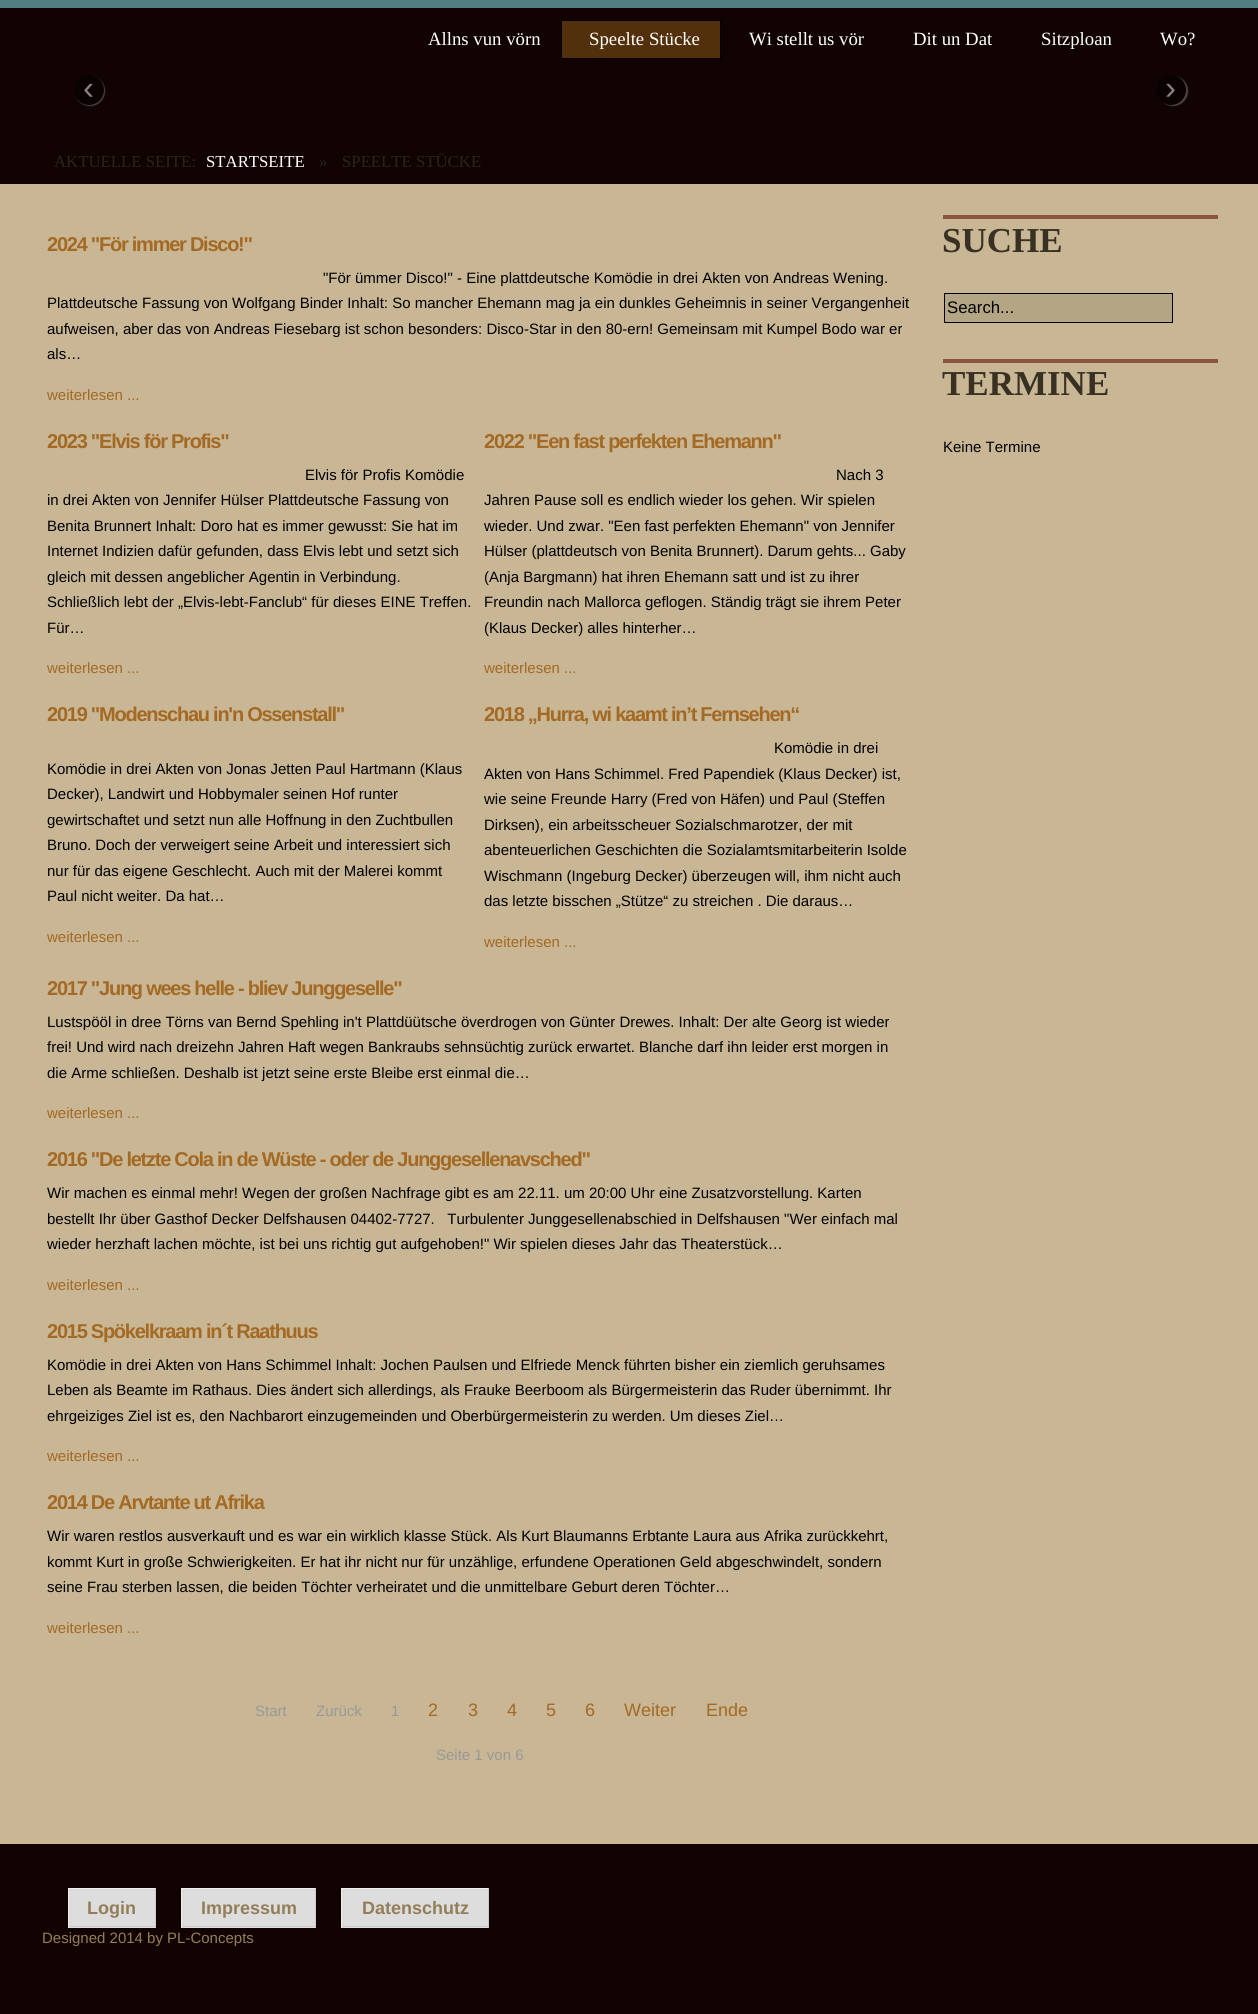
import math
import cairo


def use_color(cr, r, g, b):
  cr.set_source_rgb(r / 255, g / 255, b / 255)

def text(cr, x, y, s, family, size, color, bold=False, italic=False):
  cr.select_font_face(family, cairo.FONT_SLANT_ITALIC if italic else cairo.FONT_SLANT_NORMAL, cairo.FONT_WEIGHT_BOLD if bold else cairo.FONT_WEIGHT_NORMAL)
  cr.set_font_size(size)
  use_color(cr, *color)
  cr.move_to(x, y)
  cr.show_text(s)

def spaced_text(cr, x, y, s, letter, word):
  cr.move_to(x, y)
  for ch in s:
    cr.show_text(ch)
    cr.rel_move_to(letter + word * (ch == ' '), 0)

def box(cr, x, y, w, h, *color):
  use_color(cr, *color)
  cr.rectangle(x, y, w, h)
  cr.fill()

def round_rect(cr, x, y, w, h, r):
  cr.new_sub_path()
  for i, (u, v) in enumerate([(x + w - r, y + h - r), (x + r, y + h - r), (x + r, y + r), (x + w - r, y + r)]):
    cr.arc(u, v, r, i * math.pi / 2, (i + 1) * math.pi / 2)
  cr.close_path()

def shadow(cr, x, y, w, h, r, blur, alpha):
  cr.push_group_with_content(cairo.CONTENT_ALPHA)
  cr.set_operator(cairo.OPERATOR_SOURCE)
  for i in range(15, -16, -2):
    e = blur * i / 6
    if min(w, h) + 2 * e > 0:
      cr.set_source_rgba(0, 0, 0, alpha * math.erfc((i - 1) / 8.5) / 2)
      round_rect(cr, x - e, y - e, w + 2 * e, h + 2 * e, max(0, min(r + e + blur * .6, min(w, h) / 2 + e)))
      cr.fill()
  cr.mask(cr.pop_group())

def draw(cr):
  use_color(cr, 17, 3, 2)
  cr.paint()
  box(cr, 0, 0, 1258, 8, 80, 126, 131)
  use_color(cr, 83, 48, 12)
  cr.rectangle(561.5, 20.5, 159, 38)
  cr.fill_preserve()
  use_color(cr, 0, 0, 0)
  cr.set_line_width(1)
  cr.stroke()
  use_color(cr, 136, 129, 129)
  shadow(cr, 75, 76, 30, 30, 15, 0.5, 0.5)
  use_color(cr, 9, 2, 1)
  cr.arc(89, 90, 15, 0, 2 * math.pi)
  cr.fill()
  use_color(cr, 136, 129, 129)
  shadow(cr, 1158, 76, 30, 30, 15, 0.5, 0.5)
  use_color(cr, 9, 2, 1)
  cr.arc(1171, 90, 15, 0, 2 * math.pi)
  cr.fill()
  box(cr, 0, 184, 1258, 1660, 200, 182, 148)
  box(cr, 943, 215, 275, 4, 139, 85, 61)
  use_color(cr, 180, 166, 132)
  cr.rectangle(944.5, 293.5, 228, 29)
  cr.fill_preserve()
  use_color(cr, 0, 0, 0)
  cr.stroke()
  box(cr, 943, 359, 275, 4, 139, 85, 61)
  box(cr, 69, 1889, 86, 39, 221, 221, 221)
  box(cr, 68, 1888, 88, 1, 238, 238, 238)
  box(cr, 155, 1888, 1, 40, 204, 204, 204)
  box(cr, 68, 1926, 88, 1, 204, 204, 204)
  box(cr, 68, 1888, 1, 40, 238, 238, 238)
  box(cr, 182, 1889, 133, 39, 221, 221, 221)
  box(cr, 181, 1888, 135, 1, 238, 238, 238)
  box(cr, 315, 1888, 1, 40, 204, 204, 204)
  box(cr, 181, 1926, 135, 1, 204, 204, 204)
  box(cr, 181, 1888, 1, 40, 238, 238, 238)
  box(cr, 342, 1889, 146, 39, 221, 221, 221)
  box(cr, 341, 1888, 148, 1, 238, 238, 238)
  box(cr, 488, 1888, 1, 40, 204, 204, 204)
  box(cr, 341, 1926, 148, 1, 204, 204, 204)
  box(cr, 341, 1888, 1, 40, 238, 238, 238)
  text(cr, 428, 45, "Allns vun vörn", "Liberation Serif", 18.75, (255, 255, 255))
  text(cr, 589, 45, "Speelte Stücke", "Liberation Serif", 18.75, (255, 255, 255))
  text(cr, 749, 45, "Wi stellt us vör", "Liberation Serif", 18.75, (255, 255, 255))
  text(cr, 913, 45, "Dit un Dat", "Liberation Serif", 18.75, (255, 255, 255))
  text(cr, 1041, 45, "Sitzploan", "Liberation Serif", 18.75, (255, 255, 255))
  text(cr, 1160, 45, "Wo?", "Liberation Serif", 18.75, (255, 255, 255))
  text(cr, 83, 99, "‹", "Liberation Sans", 33, (136, 129, 129))
  text(cr, 1165, 99, "›", "Liberation Sans", 33, (136, 129, 129))
  text(cr, 54, 167, "AKTUELLE SEITE:", "Liberation Serif", 16.75, (43, 36, 22))
  text(cr, 206, 167, "STARTSEITE", "Liberation Serif", 16.75, (255, 255, 255))
  text(cr, 319, 167, "»", "Liberation Serif", 16.75, (43, 36, 22))
  text(cr, 342, 167, "SPEELTE STÜCKE", "Liberation Serif", 16.75, (43, 36, 22))
  cr.select_font_face("Liberation Sans", cairo.FONT_SLANT_NORMAL, cairo.FONT_WEIGHT_BOLD)
  cr.set_font_size(20)
  use_color(cr, 164, 105, 35)
  spaced_text(cr, 47, 251, "2024 \"För immer Disco!\"", -1.25, 0)
  text(cr, 323, 283, "\"För ümmer Disco!\" - Eine plattdeutsche Komödie in drei Akten von Andreas Wening.", "Liberation Sans", 15, (0, 0, 0))
  text(cr, 47, 308, "Plattdeutsche Fassung von Wolfgang Binder Inhalt: So mancher Ehemann mag ja ein dunkles Geheimnis in seiner Vergangenheit", "Liberation Sans", 15, (0, 0, 0))
  text(cr, 47, 334, "aufweisen, aber das von Andreas Fiesebarg ist schon besonders: Disco-Star in den 80-ern! Gemeinsam mit Kumpel Bodo war er", "Liberation Sans", 15, (0, 0, 0))
  text(cr, 47, 359, "als…", "Liberation Sans", 15, (0, 0, 0))
  text(cr, 47, 400, "weiterlesen ...", "Liberation Sans", 15, (164, 105, 35))
  cr.select_font_face("Liberation Sans", cairo.FONT_SLANT_NORMAL, cairo.FONT_WEIGHT_BOLD)
  cr.set_font_size(20)
  spaced_text(cr, 47, 448, "2023 \"Elvis för Profis\"", -1.25, 0)
  text(cr, 305, 480, "Elvis för Profis Komödie", "Liberation Sans", 15, (0, 0, 0))
  text(cr, 47, 505, "in drei Akten von Jennifer Hülser Plattdeutsche Fassung von", "Liberation Sans", 15, (0, 0, 0))
  text(cr, 47, 531, "Benita Brunnert Inhalt: Doro hat es immer gewusst: Sie hat im", "Liberation Sans", 15, (0, 0, 0))
  text(cr, 47, 556, "Internet Indizien dafür gefunden, dass Elvis lebt und setzt sich", "Liberation Sans", 15, (0, 0, 0))
  text(cr, 47, 582, "gleich mit dessen angeblicher Agentin in Verbindung.", "Liberation Sans", 15, (0, 0, 0))
  text(cr, 47, 607, "Schließlich lebt der „Elvis-lebt-Fanclub“ für dieses EINE Treffen.", "Liberation Sans", 15, (0, 0, 0))
  text(cr, 47, 633, "Für…", "Liberation Sans", 15, (0, 0, 0))
  text(cr, 47, 673, "weiterlesen ...", "Liberation Sans", 15, (164, 105, 35))
  cr.select_font_face("Liberation Sans", cairo.FONT_SLANT_NORMAL, cairo.FONT_WEIGHT_BOLD)
  cr.set_font_size(20)
  spaced_text(cr, 484, 448, "2022 \"Een fast perfekten Ehemann\"", -1.25, 0)
  text(cr, 836, 480, "Nach 3", "Liberation Sans", 15, (0, 0, 0))
  text(cr, 484, 505, "Jahren Pause soll es endlich wieder los gehen. Wir spielen", "Liberation Sans", 15, (0, 0, 0))
  text(cr, 484, 531, "wieder. Und zwar. \"Een fast perfekten Ehemann\" von Jennifer", "Liberation Sans", 15, (0, 0, 0))
  text(cr, 484, 556, "Hülser (plattdeutsch von Benita Brunnert). Darum gehts... Gaby", "Liberation Sans", 15, (0, 0, 0))
  text(cr, 484, 582, "(Anja Bargmann) hat ihren Ehemann satt und ist zu ihrer", "Liberation Sans", 15, (0, 0, 0))
  text(cr, 484, 607, "Freundin nach Mallorca geflogen. Ständig trägt sie ihrem Peter", "Liberation Sans", 15, (0, 0, 0))
  text(cr, 484, 633, "(Klaus Decker) alles hinterher…", "Liberation Sans", 15, (0, 0, 0))
  text(cr, 484, 673, "weiterlesen ...", "Liberation Sans", 15, (164, 105, 35))
  cr.select_font_face("Liberation Sans", cairo.FONT_SLANT_NORMAL, cairo.FONT_WEIGHT_BOLD)
  cr.set_font_size(20)
  spaced_text(cr, 47, 721, "2019 \"Modenschau in'n Ossenstall\"", -1.25, 0)
  text(cr, 47, 774, "Komödie in drei Akten von Jonas Jetten Paul Hartmann (Klaus", "Liberation Sans", 15, (0, 0, 0))
  text(cr, 47, 799, "Decker), Landwirt und Hobbymaler seinen Hof runter", "Liberation Sans", 15, (0, 0, 0))
  text(cr, 47, 825, "gewirtschaftet und setzt nun alle Hoffnung in den Zuchtbullen", "Liberation Sans", 15, (0, 0, 0))
  text(cr, 47, 850, "Bruno. Doch der verweigert seine Arbeit und interessiert sich", "Liberation Sans", 15, (0, 0, 0))
  text(cr, 47, 876, "nur für das eigene Geschlecht. Auch mit der Malerei kommt", "Liberation Sans", 15, (0, 0, 0))
  text(cr, 47, 901, "Paul nicht weiter. Da hat…", "Liberation Sans", 15, (0, 0, 0))
  text(cr, 47, 942, "weiterlesen ...", "Liberation Sans", 15, (164, 105, 35))
  cr.select_font_face("Liberation Sans", cairo.FONT_SLANT_NORMAL, cairo.FONT_WEIGHT_BOLD)
  cr.set_font_size(20)
  spaced_text(cr, 484, 721, "2018 „Hurra, wi kaamt in’t Fernsehen“", -1.25, 0)
  text(cr, 774, 753, "Komödie in drei", "Liberation Sans", 15, (0, 0, 0))
  text(cr, 484, 779, "Akten von Hans Schimmel. Fred Papendiek (Klaus Decker) ist,", "Liberation Sans", 15, (0, 0, 0))
  text(cr, 484, 804, "wie seine Freunde Harry (Fred von Häfen) und Paul (Steffen", "Liberation Sans", 15, (0, 0, 0))
  text(cr, 484, 830, "Dirksen), ein arbeitsscheuer Sozialschmarotzer, der mit", "Liberation Sans", 15, (0, 0, 0))
  text(cr, 484, 855, "abenteuerlichen Geschichten die Sozialamtsmitarbeiterin Isolde", "Liberation Sans", 15, (0, 0, 0))
  text(cr, 484, 881, "Wischmann (Ingeburg Decker) überzeugen will, ihm nicht auch", "Liberation Sans", 15, (0, 0, 0))
  text(cr, 484, 906, "das letzte bisschen „Stütze“ zu streichen . Die daraus…", "Liberation Sans", 15, (0, 0, 0))
  text(cr, 484, 947, "weiterlesen ...", "Liberation Sans", 15, (164, 105, 35))
  cr.select_font_face("Liberation Sans", cairo.FONT_SLANT_NORMAL, cairo.FONT_WEIGHT_BOLD)
  cr.set_font_size(20)
  spaced_text(cr, 47, 995, "2017 \"Jung wees helle - bliev Junggeselle\"", -1.25, 0)
  text(cr, 47, 1027, "Lustspööl in dree Törns van Bernd Spehling in't Plattdüütsche överdrogen von Günter Drewes. Inhalt: Der alte Georg ist wieder", "Liberation Sans", 15, (0, 0, 0))
  text(cr, 47, 1052, "frei! Und wird nach dreizehn Jahren Haft wegen Bankraubs sehnsüchtig zurück erwartet. Blanche darf ihn leider erst morgen in", "Liberation Sans", 15, (0, 0, 0))
  text(cr, 47, 1078, "die Arme schließen. Deshalb ist jetzt seine erste Bleibe erst einmal die…", "Liberation Sans", 15, (0, 0, 0))
  text(cr, 47, 1118, "weiterlesen ...", "Liberation Sans", 15, (164, 105, 35))
  cr.select_font_face("Liberation Sans", cairo.FONT_SLANT_NORMAL, cairo.FONT_WEIGHT_BOLD)
  cr.set_font_size(20)
  spaced_text(cr, 47, 1166, "2016 \"De letzte Cola in de Wüste - oder de Junggesellenavsched\"", -1.25, 0)
  text(cr, 47, 1198, "Wir machen es einmal mehr! Wegen der großen Nachfrage gibt es am 22.11. um 20:00 Uhr eine Zusatzvorstellung. Karten", "Liberation Sans", 15, (0, 0, 0))
  text(cr, 47, 1224, "bestellt Ihr über Gasthof Decker Delfshausen 04402-7727.   Turbulenter Junggesellenabschied in Delfshausen \"Wer einfach mal", "Liberation Sans", 15, (0, 0, 0))
  text(cr, 47, 1249, "wieder herzhaft lachen möchte, ist bei uns richtig gut aufgehoben!\" Wir spielen dieses Jahr das Theaterstück…", "Liberation Sans", 15, (0, 0, 0))
  text(cr, 47, 1290, "weiterlesen ...", "Liberation Sans", 15, (164, 105, 35))
  cr.select_font_face("Liberation Sans", cairo.FONT_SLANT_NORMAL, cairo.FONT_WEIGHT_BOLD)
  cr.set_font_size(20)
  spaced_text(cr, 47, 1338, "2015 Spökelkraam in´t Raathuus", -1.25, 0)
  text(cr, 47, 1370, "Komödie in drei Akten von Hans Schimmel Inhalt: Jochen Paulsen und Elfriede Menck führten bisher ein ziemlich geruhsames", "Liberation Sans", 15, (0, 0, 0))
  text(cr, 47, 1395, "Leben als Beamte im Rathaus. Dies ändert sich allerdings, als Frauke Beerboom als Bürgermeisterin das Ruder übernimmt. Ihr", "Liberation Sans", 15, (0, 0, 0))
  text(cr, 47, 1421, "ehrgeiziges Ziel ist es, den Nachbarort einzugemeinden und Oberbürgermeisterin zu werden. Um dieses Ziel…", "Liberation Sans", 15, (0, 0, 0))
  text(cr, 47, 1461, "weiterlesen ...", "Liberation Sans", 15, (164, 105, 35))
  cr.select_font_face("Liberation Sans", cairo.FONT_SLANT_NORMAL, cairo.FONT_WEIGHT_BOLD)
  cr.set_font_size(20)
  spaced_text(cr, 47, 1509, "2014 De Arvtante ut Afrika", -1.25, 0)
  text(cr, 47, 1541, "Wir waren restlos ausverkauft und es war ein wirklich klasse Stück. Als Kurt Blaumanns Erbtante Laura aus Afrika zurückkehrt,", "Liberation Sans", 15, (0, 0, 0))
  text(cr, 47, 1567, "kommt Kurt in große Schwierigkeiten. Er hat ihr nicht nur für unzählige, erfundene Operationen Geld abgeschwindelt, sondern", "Liberation Sans", 15, (0, 0, 0))
  text(cr, 47, 1592, "seine Frau sterben lassen, die beiden Töchter verheiratet und die unmittelbare Geburt deren Töchter…", "Liberation Sans", 15, (0, 0, 0))
  text(cr, 47, 1633, "weiterlesen ...", "Liberation Sans", 15, (164, 105, 35))
  text(cr, 255, 1716, "Start", "Liberation Sans", 15, (153, 153, 153))
  text(cr, 316, 1716, "Zurück", "Liberation Sans", 15, (153, 153, 153))
  text(cr, 391, 1716, "1", "Liberation Sans", 15, (153, 153, 153))
  text(cr, 428, 1716, "2", "Liberation Sans", 18, (164, 105, 35))
  text(cr, 468, 1716, "3", "Liberation Sans", 18, (164, 105, 35))
  text(cr, 507, 1716, "4", "Liberation Sans", 18, (164, 105, 35))
  text(cr, 546, 1716, "5", "Liberation Sans", 18, (164, 105, 35))
  text(cr, 585, 1716, "6", "Liberation Sans", 18, (164, 105, 35))
  text(cr, 624, 1716, "Weiter", "Liberation Sans", 18, (164, 105, 35))
  text(cr, 706, 1716, "Ende", "Liberation Sans", 18, (164, 105, 35))
  text(cr, 436, 1760, "Seite 1 von 6", "Liberation Sans", 15, (153, 153, 153))
  text(cr, 942, 252, "SUCHE", "Liberation Serif", 35, (56, 48, 34), bold=True)
  text(cr, 947, 313, "Search...", "Liberation Sans", 16.75, (0, 0, 0))
  text(cr, 942, 395, "TERMINE", "Liberation Serif", 35, (56, 48, 34), bold=True)
  text(cr, 943, 452, "Keine Termine", "Liberation Sans", 15, (0, 0, 0))
  text(cr, 87, 1914, "Login", "Liberation Sans", 18, (148, 126, 89), bold=True)
  text(cr, 201, 1914, "Impressum", "Liberation Sans", 18, (148, 126, 89), bold=True)
  text(cr, 362, 1914, "Datenschutz", "Liberation Sans", 18, (148, 126, 89), bold=True)
  text(cr, 42, 1943, "Designed 2014 by PL-Concepts", "Liberation Sans", 15, (148, 126, 89))


surface = cairo.ImageSurface(cairo.FORMAT_RGB24, 1258, 2014)
cr = cairo.Context(surface)
options = cairo.FontOptions()
options.set_hint_metrics(cairo.HINT_METRICS_OFF)
options.set_hint_style(cairo.HINT_STYLE_NONE)
cr.set_font_options(options)
cr.set_miter_limit(4)
draw(cr)
surface.write_to_png("out.png")
